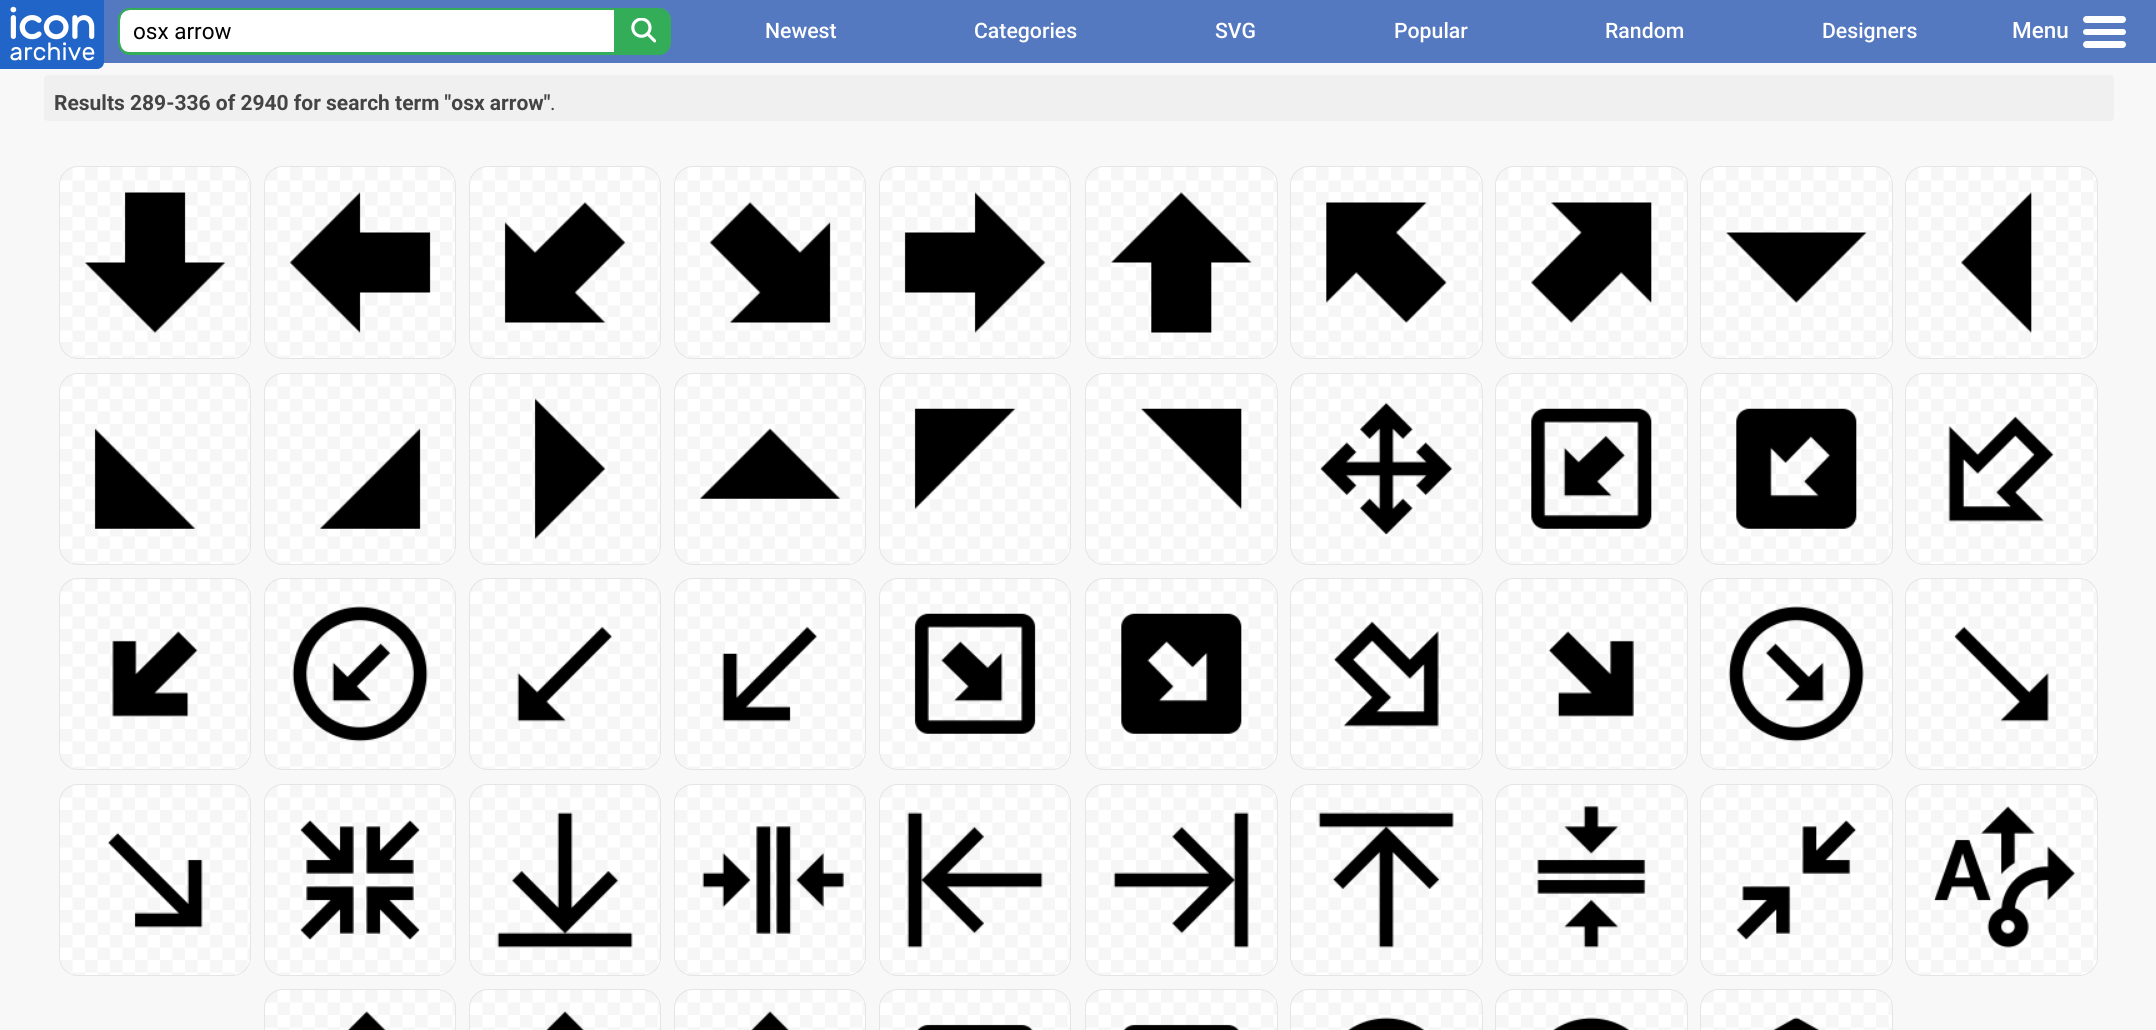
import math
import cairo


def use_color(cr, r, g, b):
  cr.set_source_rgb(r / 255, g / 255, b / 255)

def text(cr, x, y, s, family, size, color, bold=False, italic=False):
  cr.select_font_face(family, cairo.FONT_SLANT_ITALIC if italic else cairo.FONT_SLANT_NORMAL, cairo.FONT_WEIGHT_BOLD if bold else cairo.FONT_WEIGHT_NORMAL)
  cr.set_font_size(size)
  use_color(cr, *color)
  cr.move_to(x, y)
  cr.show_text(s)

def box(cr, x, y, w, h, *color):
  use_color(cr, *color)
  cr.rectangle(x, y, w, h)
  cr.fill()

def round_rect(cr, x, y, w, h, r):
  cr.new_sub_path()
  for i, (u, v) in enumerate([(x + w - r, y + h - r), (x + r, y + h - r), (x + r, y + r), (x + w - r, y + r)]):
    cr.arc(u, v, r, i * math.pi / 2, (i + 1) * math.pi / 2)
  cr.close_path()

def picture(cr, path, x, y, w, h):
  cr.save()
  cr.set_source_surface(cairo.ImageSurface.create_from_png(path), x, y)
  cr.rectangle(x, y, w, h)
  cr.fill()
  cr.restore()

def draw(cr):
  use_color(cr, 248, 248, 248)
  cr.paint()
  box(cr, 103, 0, 2053, 63, 84, 121, 193)
  picture(cr, "img_01.png", 0, 0, 104, 69)
  use_color(cr, 255, 255, 255)
  cr.new_path()
  cr.move_to(130, 10)
  cr.line_to(614, 10)
  cr.line_to(614, 53)
  cr.line_to(130, 53)
  cr.curve_to(124.5, 53, 120, 48.5, 120, 43)
  cr.line_to(120, 20)
  cr.curve_to(120, 14.5, 124.5, 10, 130, 10)
  cr.close_path()
  cr.fill()
  use_color(cr, 52, 173, 89)
  cr.set_fill_rule(cairo.FILL_RULE_EVEN_ODD)
  cr.new_path()
  cr.move_to(130, 8)
  cr.line_to(614, 8)
  cr.line_to(614, 55)
  cr.line_to(130, 55)
  cr.curve_to(123, 55, 118, 49, 118, 42)
  cr.line_to(118, 20)
  cr.curve_to(118, 13, 123, 8, 130, 8)
  cr.close_path()
  cr.move_to(130, 10)
  cr.line_to(614, 10)
  cr.line_to(614, 52)
  cr.line_to(130, 52)
  cr.curve_to(118, 52, 120, 39, 120, 31)
  cr.curve_to(120, 23, 118, 10, 130, 10)
  cr.close_path()
  cr.fill()
  cr.new_path()
  cr.move_to(614, 10)
  cr.line_to(659, 10)
  cr.curve_to(664.5, 10, 669, 14.5, 669, 20)
  cr.line_to(669, 43)
  cr.curve_to(669, 48.5, 664.5, 53, 659, 53)
  cr.line_to(614, 53)
  cr.close_path()
  cr.fill()
  cr.new_path()
  cr.move_to(614, 8)
  cr.line_to(659, 8)
  cr.curve_to(666, 8, 671, 13, 671, 20)
  cr.line_to(671, 42)
  cr.curve_to(671, 49, 666, 55, 659, 55)
  cr.line_to(614, 55)
  cr.close_path()
  cr.move_to(614, 10)
  cr.line_to(659, 10)
  cr.curve_to(664, 10, 669, 14, 669, 20)
  cr.line_to(669, 42)
  cr.curve_to(669, 48, 664, 52, 659, 52)
  cr.line_to(614, 52)
  cr.close_path()
  cr.fill()
  picture(cr, "img_02.png", 631, 18, 25, 25)
  use_color(cr, 255, 255, 255)
  round_rect(cr, 2083, 16, 43, 7, 3.5)
  cr.fill()
  round_rect(cr, 2083, 29, 43, 6, 3)
  cr.fill()
  round_rect(cr, 2083, 41, 43, 7, 3.5)
  cr.fill()
  use_color(cr, 240, 240, 240)
  round_rect(cr, 44, 75, 2070, 46, 4)
  cr.fill()
  picture(cr, "img_03.png", 59, 167, 192, 191)
  round_rect(cr, 59.5, 166.5, 191, 192, 18.5)
  use_color(cr, 229, 229, 229)
  cr.set_line_width(1)
  cr.stroke()
  picture(cr, "img_04.png", 85, 192, 141, 141)
  picture(cr, "img_03.png", 264, 167, 192, 191)
  round_rect(cr, 264.5, 166.5, 191, 192, 18.5)
  cr.stroke()
  picture(cr, "img_05.png", 289, 192, 142, 141)
  picture(cr, "img_03.png", 469, 167, 192, 191)
  round_rect(cr, 469.5, 166.5, 191, 192, 18.5)
  cr.stroke()
  picture(cr, "img_06.png", 504, 202, 122, 121)
  picture(cr, "img_03.png", 674, 167, 192, 191)
  round_rect(cr, 674.5, 166.5, 191, 192, 18.5)
  cr.stroke()
  picture(cr, "img_07.png", 709, 202, 122, 121)
  picture(cr, "img_03.png", 879, 167, 192, 191)
  round_rect(cr, 879.5, 166.5, 191, 192, 18.5)
  cr.stroke()
  picture(cr, "img_08.png", 904, 192, 142, 141)
  picture(cr, "img_09.png", 1085, 167, 192, 191)
  round_rect(cr, 1085.5, 166.5, 192, 192, 18.5)
  cr.stroke()
  picture(cr, "img_10.png", 1111, 192, 141, 141)
  picture(cr, "img_11.png", 1290, 167, 192, 191)
  round_rect(cr, 1290.5, 166.5, 192, 192, 18.5)
  cr.stroke()
  picture(cr, "img_12.png", 1326, 202, 121, 121)
  picture(cr, "img_11.png", 1495, 167, 192, 191)
  round_rect(cr, 1495.5, 166.5, 192, 192, 18.5)
  cr.stroke()
  picture(cr, "img_13.png", 1531, 202, 121, 121)
  picture(cr, "img_11.png", 1700, 167, 192, 191)
  round_rect(cr, 1700.5, 166.5, 192, 192, 18.5)
  cr.stroke()
  picture(cr, "img_14.png", 1726, 232, 141, 71)
  picture(cr, "img_11.png", 1905, 167, 192, 191)
  round_rect(cr, 1905.5, 166.5, 192, 192, 18.5)
  cr.stroke()
  picture(cr, "img_15.png", 1961, 192, 71, 141)
  picture(cr, "img_16.png", 59, 373, 192, 192)
  round_rect(cr, 59.5, 373.5, 191, 191, 18.5)
  cr.stroke()
  picture(cr, "img_17.png", 94, 428, 102, 101)
  picture(cr, "img_16.png", 264, 373, 192, 192)
  round_rect(cr, 264.5, 373.5, 191, 191, 18.5)
  cr.stroke()
  picture(cr, "img_18.png", 320, 428, 101, 101)
  picture(cr, "img_16.png", 469, 373, 192, 192)
  round_rect(cr, 469.5, 373.5, 191, 191, 18.5)
  cr.stroke()
  picture(cr, "img_19.png", 534, 398, 72, 141)
  picture(cr, "img_16.png", 674, 373, 192, 192)
  round_rect(cr, 674.5, 373.5, 191, 191, 18.5)
  cr.stroke()
  picture(cr, "img_20.png", 700, 428, 141, 71)
  picture(cr, "img_16.png", 879, 373, 192, 192)
  round_rect(cr, 879.5, 373.5, 191, 191, 18.5)
  cr.stroke()
  picture(cr, "img_21.png", 914, 408, 102, 101)
  picture(cr, "img_22.png", 1085, 373, 192, 192)
  round_rect(cr, 1085.5, 373.5, 192, 191, 18.5)
  cr.stroke()
  picture(cr, "img_23.png", 1141, 408, 101, 101)
  picture(cr, "img_24.png", 1290, 373, 192, 192)
  round_rect(cr, 1290.5, 373.5, 192, 191, 18.5)
  cr.stroke()
  picture(cr, "img_25.png", 1320, 402, 133, 133)
  picture(cr, "img_24.png", 1495, 373, 192, 192)
  round_rect(cr, 1495.5, 373.5, 192, 191, 18.5)
  cr.stroke()
  picture(cr, "img_26.png", 1531, 408, 121, 121)
  picture(cr, "img_24.png", 1700, 373, 192, 192)
  round_rect(cr, 1700.5, 373.5, 192, 191, 18.5)
  cr.stroke()
  picture(cr, "img_27.png", 1736, 408, 121, 121)
  picture(cr, "img_24.png", 1905, 373, 192, 192)
  round_rect(cr, 1905.5, 373.5, 192, 191, 18.5)
  cr.stroke()
  picture(cr, "img_28.png", 1948, 416, 106, 106)
  picture(cr, "img_29.png", 59, 578, 192, 192)
  round_rect(cr, 59.5, 578.5, 191, 191, 18.5)
  cr.stroke()
  picture(cr, "img_30.png", 112, 631, 86, 86)
  picture(cr, "img_29.png", 264, 578, 192, 192)
  round_rect(cr, 264.5, 578.5, 191, 191, 18.5)
  cr.stroke()
  picture(cr, "img_31.png", 292, 606, 136, 136)
  picture(cr, "img_29.png", 469, 578, 192, 192)
  round_rect(cr, 469.5, 578.5, 191, 191, 18.5)
  cr.stroke()
  picture(cr, "img_32.png", 517, 626, 96, 96)
  picture(cr, "img_29.png", 674, 578, 192, 192)
  round_rect(cr, 674.5, 578.5, 191, 191, 18.5)
  cr.stroke()
  picture(cr, "img_33.png", 722, 626, 96, 96)
  picture(cr, "img_29.png", 879, 578, 192, 192)
  round_rect(cr, 879.5, 578.5, 191, 191, 18.5)
  cr.stroke()
  picture(cr, "img_34.png", 914, 613, 122, 121)
  picture(cr, "img_35.png", 1085, 578, 192, 192)
  round_rect(cr, 1085.5, 578.5, 192, 191, 18.5)
  cr.stroke()
  picture(cr, "img_36.png", 1121, 613, 121, 121)
  picture(cr, "img_37.png", 1290, 578, 192, 192)
  round_rect(cr, 1290.5, 578.5, 192, 191, 18.5)
  cr.stroke()
  picture(cr, "img_38.png", 1333, 621, 106, 106)
  picture(cr, "img_37.png", 1495, 578, 192, 192)
  round_rect(cr, 1495.5, 578.5, 192, 191, 18.5)
  cr.stroke()
  picture(cr, "img_39.png", 1548, 631, 86, 86)
  picture(cr, "img_37.png", 1700, 578, 192, 192)
  round_rect(cr, 1700.5, 578.5, 192, 191, 18.5)
  cr.stroke()
  picture(cr, "img_40.png", 1728, 606, 136, 136)
  picture(cr, "img_37.png", 1905, 578, 192, 192)
  round_rect(cr, 1905.5, 578.5, 192, 191, 18.5)
  cr.stroke()
  picture(cr, "img_41.png", 1954, 626, 95, 96)
  picture(cr, "img_42.png", 59, 784, 192, 192)
  round_rect(cr, 59.5, 784.5, 191, 191, 18.5)
  cr.stroke()
  picture(cr, "img_43.png", 107, 832, 96, 96)
  picture(cr, "img_42.png", 264, 784, 192, 192)
  round_rect(cr, 264.5, 784.5, 191, 191, 18.5)
  cr.stroke()
  picture(cr, "img_44.png", 300, 820, 120, 120)
  picture(cr, "img_42.png", 469, 784, 192, 192)
  round_rect(cr, 469.5, 784.5, 191, 191, 18.5)
  cr.stroke()
  picture(cr, "img_45.png", 497, 812, 136, 136)
  picture(cr, "img_42.png", 674, 784, 192, 192)
  round_rect(cr, 674.5, 784.5, 191, 191, 18.5)
  cr.stroke()
  picture(cr, "img_46.png", 702, 826, 142, 108)
  picture(cr, "img_42.png", 879, 784, 192, 192)
  round_rect(cr, 879.5, 784.5, 191, 191, 18.5)
  cr.stroke()
  picture(cr, "img_47.png", 907, 812, 136, 136)
  picture(cr, "img_48.png", 1085, 784, 192, 192)
  round_rect(cr, 1085.5, 784.5, 192, 191, 18.5)
  cr.stroke()
  picture(cr, "img_49.png", 1113, 812, 136, 136)
  picture(cr, "img_50.png", 1290, 784, 192, 192)
  round_rect(cr, 1290.5, 784.5, 192, 191, 18.5)
  cr.stroke()
  picture(cr, "img_51.png", 1318, 812, 136, 136)
  picture(cr, "img_50.png", 1495, 784, 192, 192)
  round_rect(cr, 1495.5, 784.5, 192, 191, 18.5)
  cr.stroke()
  picture(cr, "img_52.png", 1537, 806, 109, 142)
  picture(cr, "img_50.png", 1700, 784, 192, 192)
  round_rect(cr, 1700.5, 784.5, 192, 191, 18.5)
  cr.stroke()
  picture(cr, "img_53.png", 1736, 820, 121, 120)
  picture(cr, "img_50.png", 1905, 784, 192, 192)
  round_rect(cr, 1905.5, 784.5, 192, 191, 18.5)
  cr.stroke()
  picture(cr, "img_54.png", 1933, 806, 143, 142)
  picture(cr, "img_55.png", 264, 989, 192, 41)
  round_rect(cr, 264.5, 989.5, 191, 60, 18.5)
  cr.stroke()
  picture(cr, "img_56.png", 347, 1011, 39, 19)
  picture(cr, "img_55.png", 469, 989, 192, 41)
  round_rect(cr, 469.5, 989.5, 191, 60, 18.5)
  cr.stroke()
  picture(cr, "img_57.png", 546, 1011, 38, 19)
  picture(cr, "img_55.png", 674, 989, 192, 41)
  round_rect(cr, 674.5, 989.5, 191, 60, 18.5)
  cr.stroke()
  picture(cr, "img_58.png", 751, 1011, 38, 19)
  picture(cr, "img_55.png", 879, 989, 192, 41)
  round_rect(cr, 879.5, 989.5, 191, 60, 18.5)
  cr.stroke()
  picture(cr, "img_59.png", 917, 1024, 116, 6)
  picture(cr, "img_60.png", 1085, 989, 192, 41)
  round_rect(cr, 1085.5, 989.5, 192, 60, 18.5)
  cr.stroke()
  picture(cr, "img_61.png", 1123, 1024, 116, 6)
  picture(cr, "img_62.png", 1290, 989, 192, 41)
  round_rect(cr, 1290.5, 989.5, 192, 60, 18.5)
  cr.stroke()
  picture(cr, "img_63.png", 1347, 1017, 78, 13)
  picture(cr, "img_62.png", 1495, 989, 192, 41)
  round_rect(cr, 1495.5, 989.5, 192, 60, 18.5)
  cr.stroke()
  picture(cr, "img_64.png", 1552, 1017, 78, 13)
  picture(cr, "img_62.png", 1700, 989, 192, 41)
  round_rect(cr, 1700.5, 989.5, 192, 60, 18.5)
  cr.stroke()
  picture(cr, "img_65.png", 1772, 1017, 48, 13)
  text(cr, 133, 39, "osx arrow", "Roboto", 22.5, (0, 0, 0))
  text(cr, 765, 38, "Newest", "Roboto Medium", 21.25, (255, 255, 255))
  text(cr, 974, 38, "Categories", "Roboto Medium", 21.25, (255, 255, 255))
  text(cr, 1215, 38, "SVG", "Roboto Medium", 21.25, (255, 255, 255))
  text(cr, 1394, 38, "Popular", "Roboto Medium", 21.25, (255, 255, 255))
  text(cr, 1605, 38, "Random", "Roboto Medium", 21.25, (255, 255, 255))
  text(cr, 1822, 38, "Designers", "Roboto Medium", 21.25, (255, 255, 255))
  text(cr, 2012, 38, "Menu", "Roboto Medium", 22.5, (255, 255, 255))
  text(cr, 54, 110, "Results 289-336 of 2940 for search term \"osx arrow\"", "Roboto", 21, (68, 68, 68), bold=True)
  text(cr, 550, 110, ".", "Roboto", 21, (68, 68, 68))


surface = cairo.ImageSurface(cairo.FORMAT_RGB24, 2156, 1030)
cr = cairo.Context(surface)
options = cairo.FontOptions()
options.set_hint_metrics(cairo.HINT_METRICS_OFF)
options.set_hint_style(cairo.HINT_STYLE_NONE)
cr.set_font_options(options)
cr.set_miter_limit(4)
draw(cr)
surface.write_to_png("out.png")
